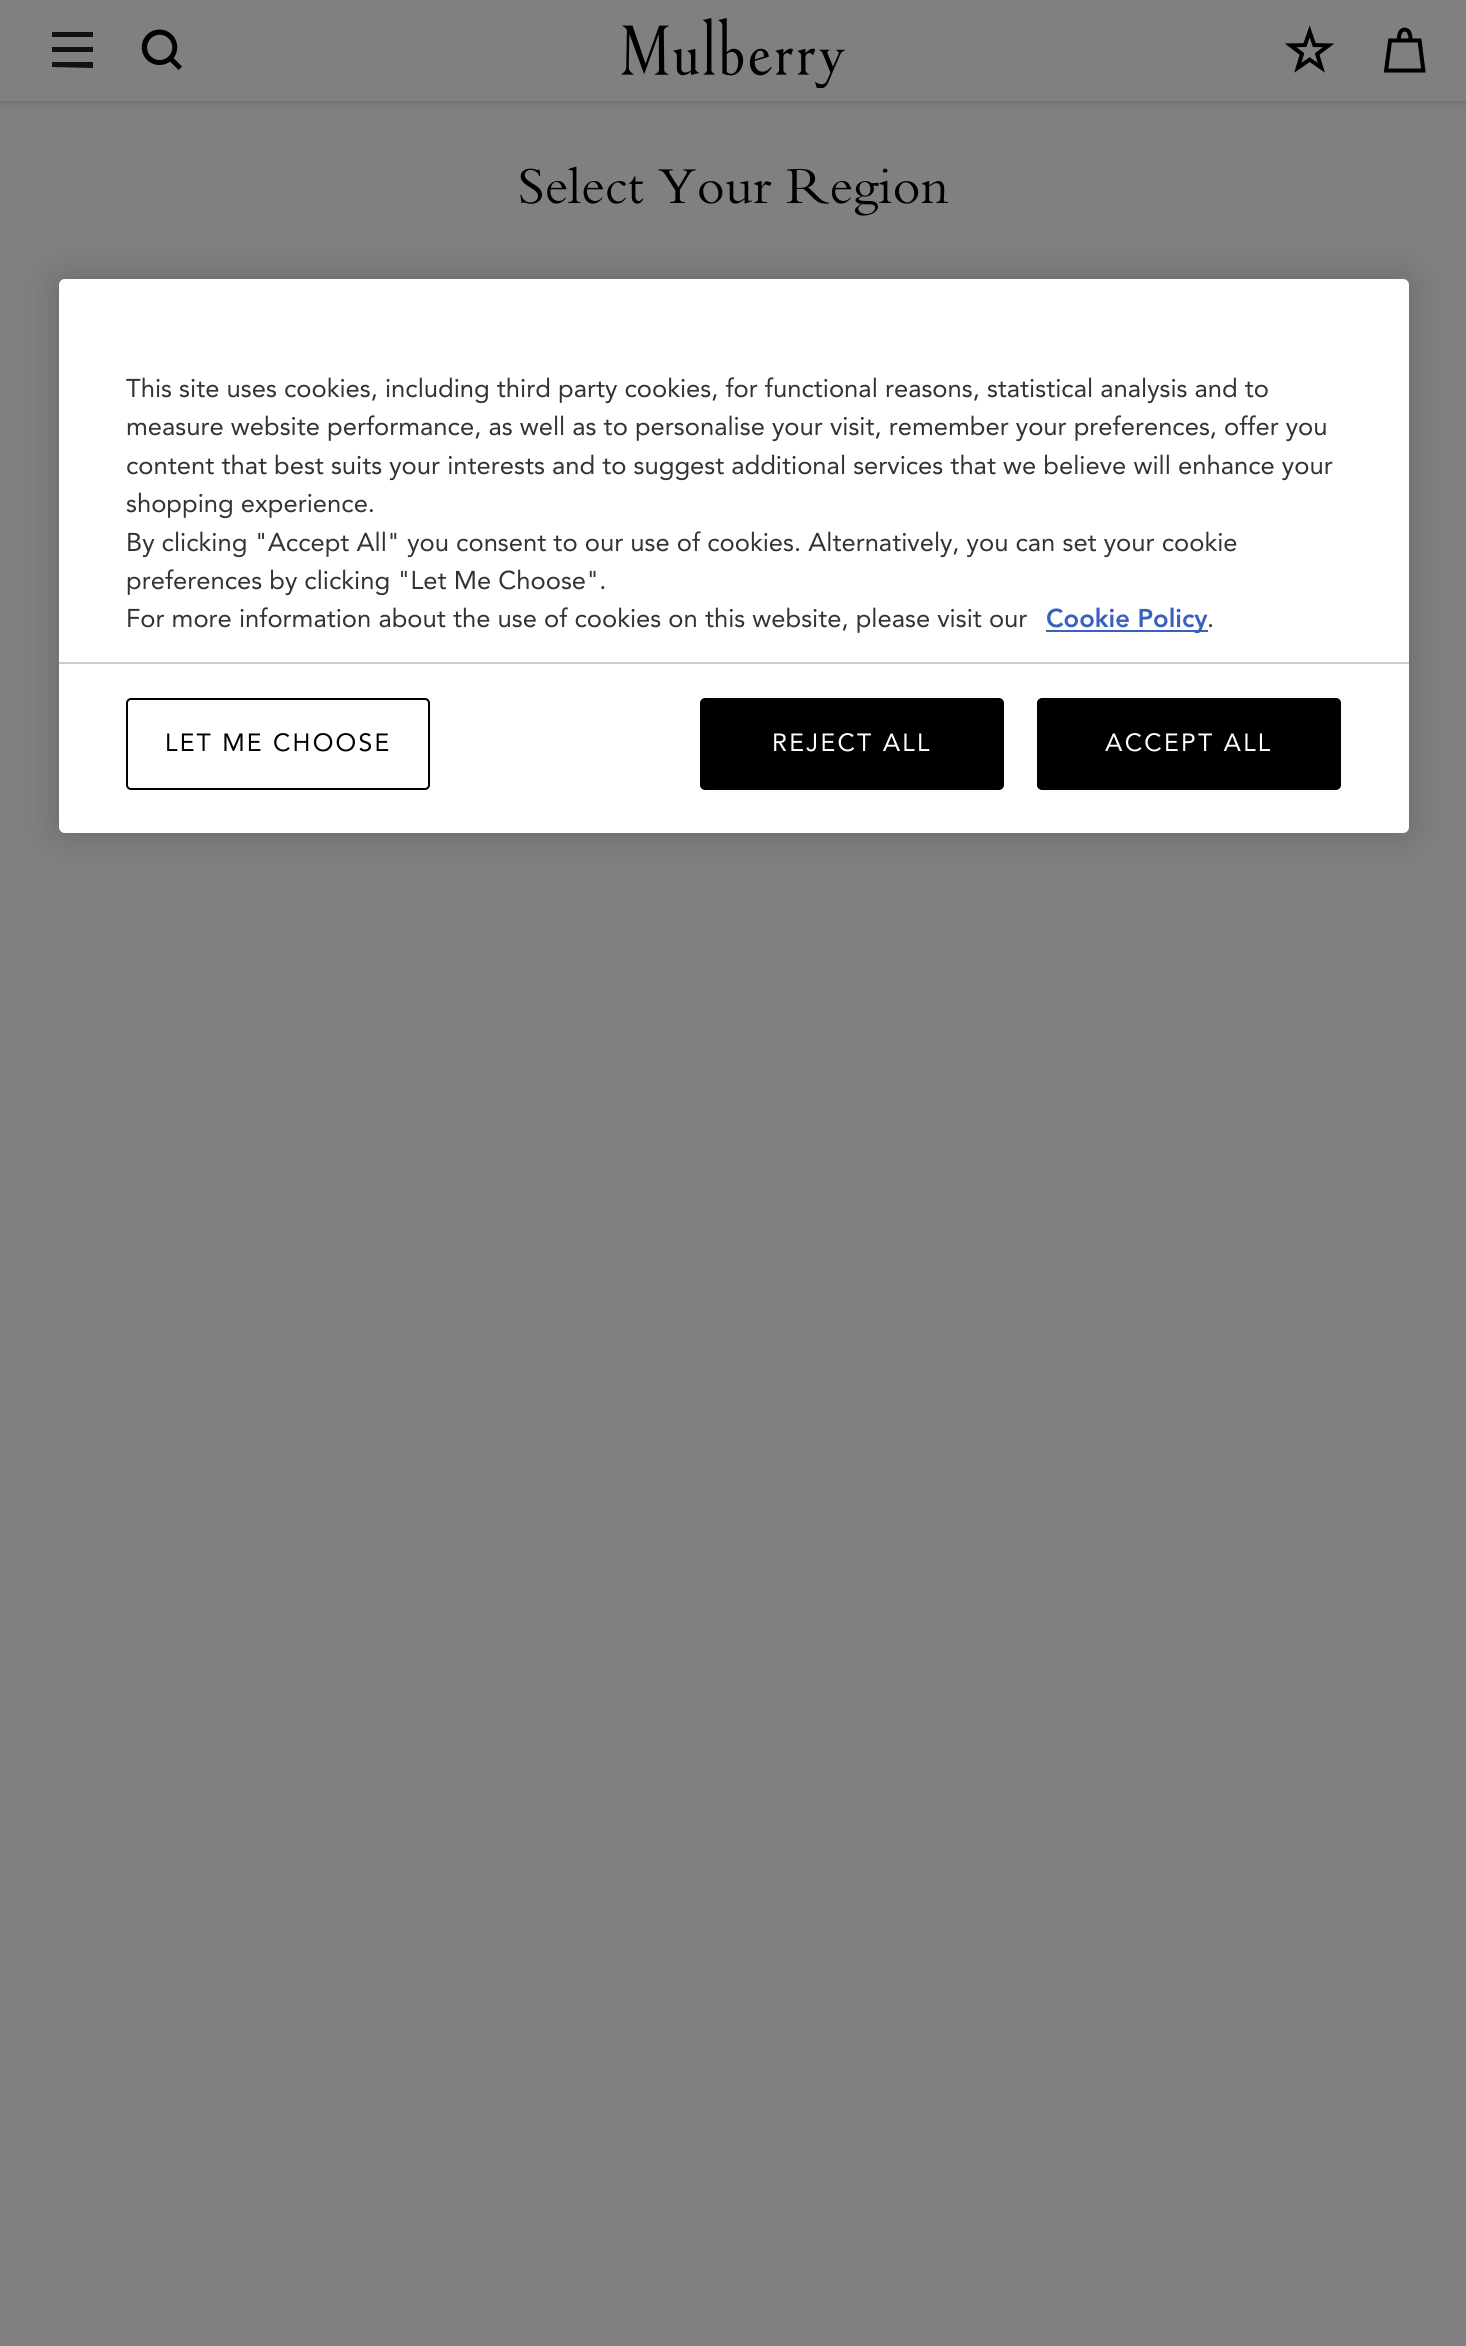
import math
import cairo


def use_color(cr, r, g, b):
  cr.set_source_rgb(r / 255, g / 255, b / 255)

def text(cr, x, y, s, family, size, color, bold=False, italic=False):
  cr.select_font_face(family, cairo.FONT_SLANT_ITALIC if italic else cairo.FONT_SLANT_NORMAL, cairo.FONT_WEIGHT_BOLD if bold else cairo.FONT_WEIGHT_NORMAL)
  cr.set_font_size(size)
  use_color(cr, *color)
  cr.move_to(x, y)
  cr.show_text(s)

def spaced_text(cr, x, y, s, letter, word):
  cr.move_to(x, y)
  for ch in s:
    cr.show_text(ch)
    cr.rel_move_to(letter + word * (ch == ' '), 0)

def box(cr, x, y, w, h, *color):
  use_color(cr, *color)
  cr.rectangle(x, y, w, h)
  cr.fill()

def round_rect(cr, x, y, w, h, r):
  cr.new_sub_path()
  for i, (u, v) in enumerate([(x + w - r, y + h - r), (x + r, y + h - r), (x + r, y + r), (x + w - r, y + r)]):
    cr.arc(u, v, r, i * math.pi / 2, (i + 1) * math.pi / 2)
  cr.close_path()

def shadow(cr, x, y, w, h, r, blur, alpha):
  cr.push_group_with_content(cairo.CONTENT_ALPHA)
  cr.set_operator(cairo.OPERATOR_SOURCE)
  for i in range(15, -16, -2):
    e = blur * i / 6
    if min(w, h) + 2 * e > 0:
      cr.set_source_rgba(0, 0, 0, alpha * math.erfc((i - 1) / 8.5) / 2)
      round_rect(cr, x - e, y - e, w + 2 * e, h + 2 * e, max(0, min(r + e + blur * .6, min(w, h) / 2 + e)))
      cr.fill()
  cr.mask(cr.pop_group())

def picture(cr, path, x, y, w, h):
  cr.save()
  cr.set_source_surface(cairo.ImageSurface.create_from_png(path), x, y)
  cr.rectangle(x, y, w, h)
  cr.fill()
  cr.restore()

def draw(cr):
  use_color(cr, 128, 128, 128)
  cr.paint()
  use_color(cr, 0, 0, 0)
  shadow(cr, 0, 0, 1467, 101, 0, 5.5, 0.2)
  box(cr, 0, 0, 1466, 101, 128, 128, 128)
  use_color(cr, 17, 17, 17)
  cr.new_path()
  cr.move_to(93, 32)
  cr.line_to(93, 37)
  cr.line_to(52, 37)
  cr.line_to(52, 32)
  cr.close_path()
  cr.move_to(93, 62)
  cr.line_to(93, 68)
  cr.line_to(52, 67)
  cr.line_to(52, 62)
  cr.close_path()
  cr.move_to(93, 47)
  cr.line_to(93, 52)
  cr.line_to(52, 52)
  cr.line_to(52, 47)
  cr.close_path()
  cr.fill()
  picture(cr, "img_01.png", 141, 29, 41, 41)
  picture(cr, "img_02.png", 621, 18, 225, 70)
  picture(cr, "img_03.png", 1284, 25, 51, 48)
  picture(cr, "img_04.png", 1383, 27, 43, 46)
  use_color(cr, 0, 0, 0)
  shadow(cr, 59, 279, 1350, 554, 6, 20, 0.2)
  use_color(cr, 255, 255, 255)
  round_rect(cr, 59, 279, 1350, 554, 6)
  cr.fill()
  box(cr, 1046, 630, 162, 2, 56, 96, 190)
  box(cr, 59, 662, 1350, 2, 204, 204, 204)
  round_rect(cr, 127, 699, 302, 90, 4)
  use_color(cr, 0, 0, 0)
  cr.stroke()
  round_rect(cr, 701, 699, 302, 90, 4)
  cr.fill_preserve()
  cr.stroke()
  round_rect(cr, 1038, 699, 302, 90, 4)
  cr.fill_preserve()
  cr.stroke()
  text(cr, 518, 203, "Select Your Region", "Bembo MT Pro", 54, (0, 0, 0))
  text(cr, 126, 397, "This site uses cookies, including third party cookies, for functional reasons, statistical analysis and to", "Avenir", 25.6, (51, 51, 51))
  text(cr, 126, 435, "measure website performance, as well as to personalise your visit, remember your preferences, offer you", "Avenir", 25.6, (51, 51, 51))
  text(cr, 126, 474, "content that best suits your interests and to suggest additional services that we believe will enhance your", "Avenir", 25.6, (51, 51, 51))
  text(cr, 126, 512, "shopping experience.", "Avenir", 25.6, (51, 51, 51))
  text(cr, 126, 551, "By clicking \"Accept All\" you consent to our use of cookies. Alternatively, you can set your cookie", "Avenir", 25.6, (51, 51, 51))
  text(cr, 126, 589, "preferences by clicking \"Let Me Choose\".", "Avenir", 25.6, (51, 51, 51))
  text(cr, 126, 627, "For more information about the use of cookies on this website, please visit our", "Avenir", 25.6, (51, 51, 51))
  text(cr, 1046, 627, "Cookie Policy", "Avenir Black", 25.6, (56, 96, 190))
  text(cr, 1207, 627, ".", "Avenir", 25.6, (51, 51, 51))
  cr.set_font_size(24.75)
  use_color(cr, 0, 0, 0)
  spaced_text(cr, 165, 751, "LET ME CHOOSE", 2.25, 0)
  use_color(cr, 255, 255, 255)
  spaced_text(cr, 772, 751, "REJECT ALL", 2.25, 0)
  spaced_text(cr, 1105, 751, "ACCEPT ALL", 2.25, 0)


surface = cairo.ImageSurface(cairo.FORMAT_RGB24, 1466, 2346)
cr = cairo.Context(surface)
options = cairo.FontOptions()
options.set_hint_metrics(cairo.HINT_METRICS_OFF)
options.set_hint_style(cairo.HINT_STYLE_NONE)
cr.set_font_options(options)
cr.set_miter_limit(4)
draw(cr)
surface.write_to_png("out.png")
